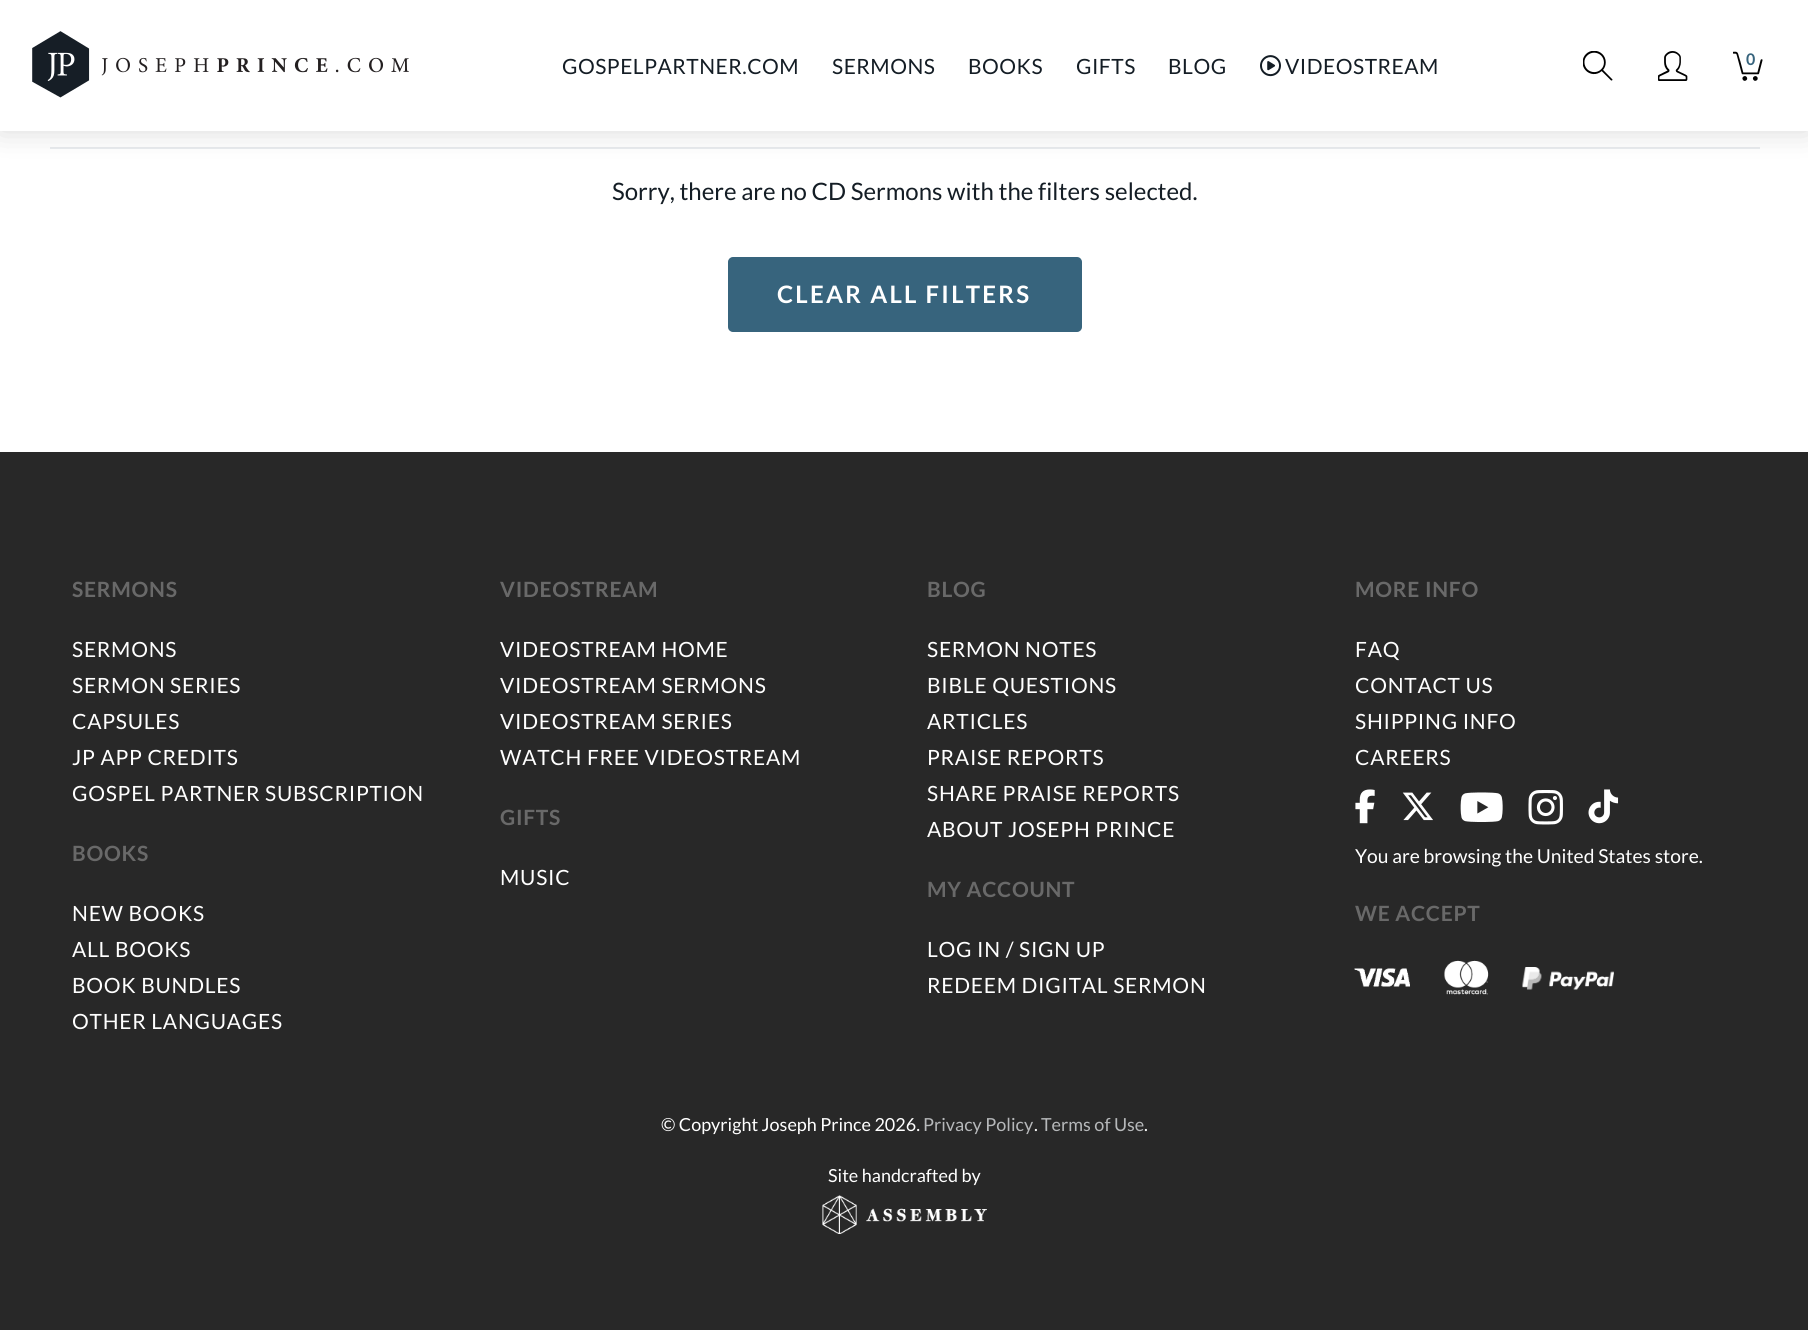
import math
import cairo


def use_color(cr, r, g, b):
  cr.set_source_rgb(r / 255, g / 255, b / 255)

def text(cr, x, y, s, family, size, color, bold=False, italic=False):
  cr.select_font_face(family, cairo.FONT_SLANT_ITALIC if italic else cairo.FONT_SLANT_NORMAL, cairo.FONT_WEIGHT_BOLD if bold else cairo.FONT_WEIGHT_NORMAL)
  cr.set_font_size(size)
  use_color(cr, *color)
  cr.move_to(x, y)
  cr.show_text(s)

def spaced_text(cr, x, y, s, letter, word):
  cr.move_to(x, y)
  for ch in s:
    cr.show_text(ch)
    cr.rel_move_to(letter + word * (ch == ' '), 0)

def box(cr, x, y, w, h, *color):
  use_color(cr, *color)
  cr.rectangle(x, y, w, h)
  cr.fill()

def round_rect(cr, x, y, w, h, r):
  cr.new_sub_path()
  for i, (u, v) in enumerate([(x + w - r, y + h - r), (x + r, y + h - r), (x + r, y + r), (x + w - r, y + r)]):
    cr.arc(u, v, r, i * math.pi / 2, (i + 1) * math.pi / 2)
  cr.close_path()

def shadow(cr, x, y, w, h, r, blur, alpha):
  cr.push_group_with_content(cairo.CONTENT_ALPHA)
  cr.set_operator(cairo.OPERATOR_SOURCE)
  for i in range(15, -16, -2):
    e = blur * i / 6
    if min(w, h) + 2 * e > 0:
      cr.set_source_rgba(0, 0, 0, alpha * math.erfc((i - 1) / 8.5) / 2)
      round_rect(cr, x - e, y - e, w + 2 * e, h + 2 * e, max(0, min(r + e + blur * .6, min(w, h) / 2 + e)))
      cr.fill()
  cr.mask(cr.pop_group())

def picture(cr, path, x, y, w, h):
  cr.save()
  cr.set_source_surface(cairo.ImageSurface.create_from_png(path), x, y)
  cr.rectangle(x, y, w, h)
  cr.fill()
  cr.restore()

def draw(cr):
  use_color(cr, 255, 255, 255)
  cr.paint()
  box(cr, 50, 147, 1710, 2, 233, 236, 239)
  use_color(cr, 0, 0, 0)
  shadow(cr, 0, 0, 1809, 131, 0, 15, 0.15)
  box(cr, 0, 0, 1808, 131, 255, 255, 255)
  picture(cr, "img_01.png", 32, 31, 377, 67)
  picture(cr, "img_02.png", 1260, 55, 21, 22)
  picture(cr, "img_03.png", 1583, 51, 30, 30)
  picture(cr, "img_04.png", 1658, 51, 30, 30)
  picture(cr, "img_05.png", 1733, 51, 30, 30)
  use_color(cr, 55, 100, 125)
  round_rect(cr, 729, 258, 352, 73, 4)
  cr.fill_preserve()
  cr.stroke()
  box(cr, 0, 452, 1808, 878, 40, 40, 40)
  picture(cr, "img_06.png", 1355, 789, 20, 35)
  picture(cr, "img_07.png", 1402, 792, 31, 29)
  picture(cr, "img_08.png", 1460, 792, 43, 30)
  picture(cr, "img_09.png", 1528, 790, 35, 35)
  picture(cr, "img_10.png", 1588, 789, 31, 35)
  picture(cr, "img_11.png", 1354, 968, 56, 19)
  picture(cr, "img_12.png", 1444, 960, 45, 35)
  picture(cr, "img_13.png", 1522, 967, 92, 23)
  picture(cr, "img_14.png", 822, 1195, 165, 39)
  cr.select_font_face("Lato")
  cr.set_font_size(21)
  use_color(cr, 20, 29, 37)
  spaced_text(cr, 562, 74, "GOSPELPARTNER.COM", 0.5, 0)
  spaced_text(cr, 832, 74, "SERMONS", 0.5, 0)
  spaced_text(cr, 968, 74, "BOOKS", 0.5, 0)
  spaced_text(cr, 1076, 74, "GIFTS", 0.5, 0)
  spaced_text(cr, 1168, 74, "BLOG", 0.5, 0)
  spaced_text(cr, 1285, 74, "VIDEOSTREAM", 0.5, 0)
  cr.select_font_face("Lato", cairo.FONT_SLANT_NORMAL, cairo.FONT_WEIGHT_BOLD)
  cr.set_font_size(16)
  use_color(cr, 55, 100, 125)
  spaced_text(cr, 1746, 65, "0", -2, 0)
  text(cr, 612, 200, "Sorry, there are no CD Sermons with the filters selected.", "Lato", 24, (20, 29, 37))
  cr.select_font_face("Lato", cairo.FONT_SLANT_NORMAL, cairo.FONT_WEIGHT_BOLD)
  use_color(cr, 255, 255, 255)
  spaced_text(cr, 777, 303, "CLEAR ALL FILTERS", 2.25, 0)
  cr.set_font_size(21)
  use_color(cr, 105, 105, 105)
  spaced_text(cr, 72, 597, "SERMONS", 0.75, 0)
  cr.select_font_face("Lato")
  use_color(cr, 255, 255, 255)
  spaced_text(cr, 72, 657, "SERMONS", 0.75, 0)
  spaced_text(cr, 72, 693, "SERMON SERIES", 0.75, 0)
  spaced_text(cr, 72, 729, "CAPSULES", 0.75, 0)
  spaced_text(cr, 72, 765, "JP APP CREDITS", 0.75, 0)
  spaced_text(cr, 72, 801, "GOSPEL PARTNER SUBSCRIPTION", 0.75, 0)
  cr.select_font_face("Lato", cairo.FONT_SLANT_NORMAL, cairo.FONT_WEIGHT_BOLD)
  use_color(cr, 105, 105, 105)
  spaced_text(cr, 72, 861, "BOOKS", 0.75, 0)
  cr.select_font_face("Lato")
  use_color(cr, 255, 255, 255)
  spaced_text(cr, 72, 921, "NEW BOOKS", 0.75, 0)
  spaced_text(cr, 72, 957, "ALL BOOKS", 0.75, 0)
  spaced_text(cr, 72, 993, "BOOK BUNDLES", 0.75, 0)
  spaced_text(cr, 72, 1029, "OTHER LANGUAGES", 0.75, 0)
  cr.select_font_face("Lato", cairo.FONT_SLANT_NORMAL, cairo.FONT_WEIGHT_BOLD)
  use_color(cr, 105, 105, 105)
  spaced_text(cr, 500, 597, "VIDEOSTREAM", 0.75, 0)
  cr.select_font_face("Lato")
  use_color(cr, 255, 255, 255)
  spaced_text(cr, 500, 657, "VIDEOSTREAM HOME", 0.75, 0)
  spaced_text(cr, 500, 693, "VIDEOSTREAM SERMONS", 0.75, 0)
  spaced_text(cr, 500, 729, "VIDEOSTREAM SERIES", 0.75, 0)
  spaced_text(cr, 500, 765, "WATCH FREE VIDEOSTREAM", 0.75, 0)
  cr.select_font_face("Lato", cairo.FONT_SLANT_NORMAL, cairo.FONT_WEIGHT_BOLD)
  use_color(cr, 105, 105, 105)
  spaced_text(cr, 500, 825, "GIFTS", 0.75, 0)
  cr.select_font_face("Lato")
  use_color(cr, 255, 255, 255)
  spaced_text(cr, 500, 885, "MUSIC", 0.75, 0)
  cr.select_font_face("Lato", cairo.FONT_SLANT_NORMAL, cairo.FONT_WEIGHT_BOLD)
  use_color(cr, 105, 105, 105)
  spaced_text(cr, 927, 597, "BLOG", 0.75, 0)
  cr.select_font_face("Lato")
  use_color(cr, 255, 255, 255)
  spaced_text(cr, 927, 657, "SERMON NOTES", 0.75, 0)
  spaced_text(cr, 927, 693, "BIBLE QUESTIONS", 0.75, 0)
  spaced_text(cr, 927, 729, "ARTICLES", 0.75, 0)
  spaced_text(cr, 927, 765, "PRAISE REPORTS", 0.75, 0)
  spaced_text(cr, 927, 801, "SHARE PRAISE REPORTS", 0.75, 0)
  spaced_text(cr, 927, 837, "ABOUT JOSEPH PRINCE", 0.75, 0)
  cr.select_font_face("Lato", cairo.FONT_SLANT_NORMAL, cairo.FONT_WEIGHT_BOLD)
  use_color(cr, 105, 105, 105)
  spaced_text(cr, 927, 897, "MY ACCOUNT", 0.75, 0)
  cr.select_font_face("Lato")
  use_color(cr, 255, 255, 255)
  spaced_text(cr, 927, 957, "LOG IN / SIGN UP", 0.75, 0)
  spaced_text(cr, 927, 993, "REDEEM DIGITAL SERMON", 0.75, 0)
  cr.select_font_face("Lato", cairo.FONT_SLANT_NORMAL, cairo.FONT_WEIGHT_BOLD)
  use_color(cr, 105, 105, 105)
  spaced_text(cr, 1355, 597, "MORE INFO", 0.75, 0)
  cr.select_font_face("Lato")
  use_color(cr, 255, 255, 255)
  spaced_text(cr, 1355, 657, "FAQ", 0.75, 0)
  spaced_text(cr, 1355, 693, "CONTACT US", 0.75, 0)
  spaced_text(cr, 1355, 729, "SHIPPING INFO", 0.75, 0)
  spaced_text(cr, 1355, 765, "CAREERS", 0.75, 0)
  text(cr, 1355, 863, "You are browsing the United States store.", "Lato", 19.25, (255, 255, 255))
  cr.select_font_face("Lato", cairo.FONT_SLANT_NORMAL, cairo.FONT_WEIGHT_BOLD)
  cr.set_font_size(21)
  use_color(cr, 105, 105, 105)
  spaced_text(cr, 1355, 921, "WE ACCEPT", 0.75, 0)
  text(cr, 661, 1131, "© Copyright Joseph Prince 2026.", "Lato", 18, (255, 255, 255))
  text(cr, 923, 1131, "Privacy Policy", "Lato", 18, (182, 184, 186))
  text(cr, 1034, 1131, ".", "Lato", 18, (255, 255, 255))
  text(cr, 1041, 1131, "Terms of Use", "Lato", 18, (182, 184, 186))
  text(cr, 1144, 1131, ".", "Lato", 18, (255, 255, 255))
  text(cr, 828, 1182, "Site handcrafted by", "Lato", 18, (255, 255, 255))


surface = cairo.ImageSurface(cairo.FORMAT_RGB24, 1808, 1330)
cr = cairo.Context(surface)
options = cairo.FontOptions()
options.set_hint_metrics(cairo.HINT_METRICS_OFF)
options.set_hint_style(cairo.HINT_STYLE_NONE)
cr.set_font_options(options)
cr.set_miter_limit(4)
draw(cr)
surface.write_to_png("out.png")
